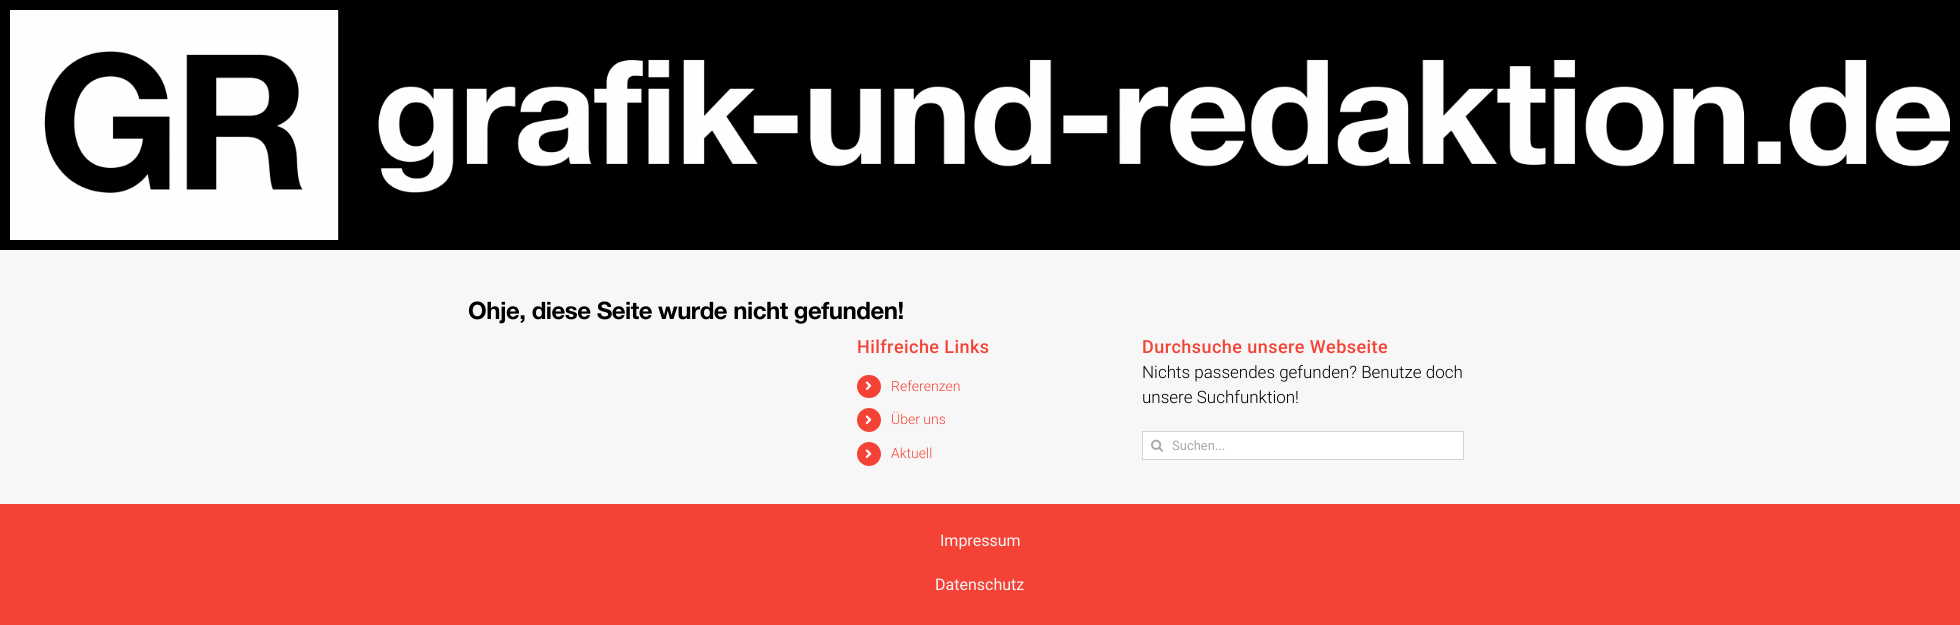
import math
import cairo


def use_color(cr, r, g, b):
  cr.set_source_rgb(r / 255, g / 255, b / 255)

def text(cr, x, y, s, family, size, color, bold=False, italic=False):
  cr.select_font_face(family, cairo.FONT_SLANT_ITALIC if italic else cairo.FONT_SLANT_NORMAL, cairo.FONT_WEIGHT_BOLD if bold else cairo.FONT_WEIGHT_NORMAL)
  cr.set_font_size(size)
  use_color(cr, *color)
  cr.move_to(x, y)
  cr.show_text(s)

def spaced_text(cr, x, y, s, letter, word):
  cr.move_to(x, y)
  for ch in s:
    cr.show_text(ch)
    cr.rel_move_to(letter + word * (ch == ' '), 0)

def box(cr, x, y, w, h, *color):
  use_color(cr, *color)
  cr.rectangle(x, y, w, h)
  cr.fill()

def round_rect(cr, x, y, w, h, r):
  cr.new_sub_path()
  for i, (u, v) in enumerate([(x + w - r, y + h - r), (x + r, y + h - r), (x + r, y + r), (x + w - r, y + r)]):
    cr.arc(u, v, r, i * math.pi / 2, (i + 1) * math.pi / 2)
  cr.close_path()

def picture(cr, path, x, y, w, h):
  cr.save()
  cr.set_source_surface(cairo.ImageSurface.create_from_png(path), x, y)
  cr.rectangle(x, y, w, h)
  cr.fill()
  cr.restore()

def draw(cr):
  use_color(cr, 247, 247, 247)
  cr.paint()
  box(cr, 0, 0, 1960, 250, 0, 0, 0)
  picture(cr, "img_01.png", 10, 10, 1940, 230)
  use_color(cr, 244, 67, 54)
  round_rect(cr, 857, 375, 24, 23, 11.5)
  cr.fill()
  picture(cr, "img_02.png", 865, 381, 7, 10)
  cr.arc(869, 420, 12, 0, 2 * math.pi)
  cr.fill()
  picture(cr, "img_02.png", 865, 415, 7, 10)
  cr.arc(869, 454, 12, 0, 2 * math.pi)
  cr.fill()
  picture(cr, "img_02.png", 865, 449, 7, 10)
  use_color(cr, 255, 255, 255)
  cr.rectangle(1142.5, 431.5, 321, 28)
  cr.fill_preserve()
  use_color(cr, 210, 210, 210)
  cr.set_line_width(1)
  cr.stroke()
  picture(cr, "img_03.png", 1151, 439, 12, 13)
  box(cr, 0, 504, 1960, 121, 244, 67, 54)
  cr.select_font_face("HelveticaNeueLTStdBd")
  cr.set_font_size(24)
  use_color(cr, 0, 0, 0)
  spaced_text(cr, 468, 319, "Ohje, diese Seite wurde nicht gefunden!", -0.5, 0)
  cr.select_font_face("Roboto Medium")
  cr.set_font_size(18)
  use_color(cr, 244, 67, 54)
  spaced_text(cr, 857, 353, "Hilfreiche Links", 0.45, 0)
  text(cr, 891, 391, "Referenzen", "Roboto Light", 14, (244, 67, 54))
  text(cr, 891, 424, "Über uns", "Roboto Light", 14, (244, 67, 54))
  text(cr, 891, 458, "Aktuell", "Roboto Light", 14, (244, 67, 54))
  cr.select_font_face("Roboto Medium")
  cr.set_font_size(18)
  spaced_text(cr, 1142, 353, "Durchsuche unsere Webseite", 0.45, 0)
  text(cr, 1142, 378, "Nichts passendes gefunden? Benutze doch", "Roboto Light", 17, (0, 0, 0))
  text(cr, 1142, 403, "unsere Suchfunktion!", "Roboto Light", 17, (0, 0, 0))
  text(cr, 1172, 450, "Suchen...", "Roboto", 13, (170, 169, 169))
  text(cr, 940, 546, "Impressum", "Roboto", 16, (246, 246, 246))
  text(cr, 935, 590, "Datenschutz", "Roboto", 16, (246, 246, 246))


surface = cairo.ImageSurface(cairo.FORMAT_RGB24, 1960, 625)
cr = cairo.Context(surface)
options = cairo.FontOptions()
options.set_hint_metrics(cairo.HINT_METRICS_OFF)
options.set_hint_style(cairo.HINT_STYLE_NONE)
cr.set_font_options(options)
cr.set_miter_limit(4)
draw(cr)
surface.write_to_png("out.png")
